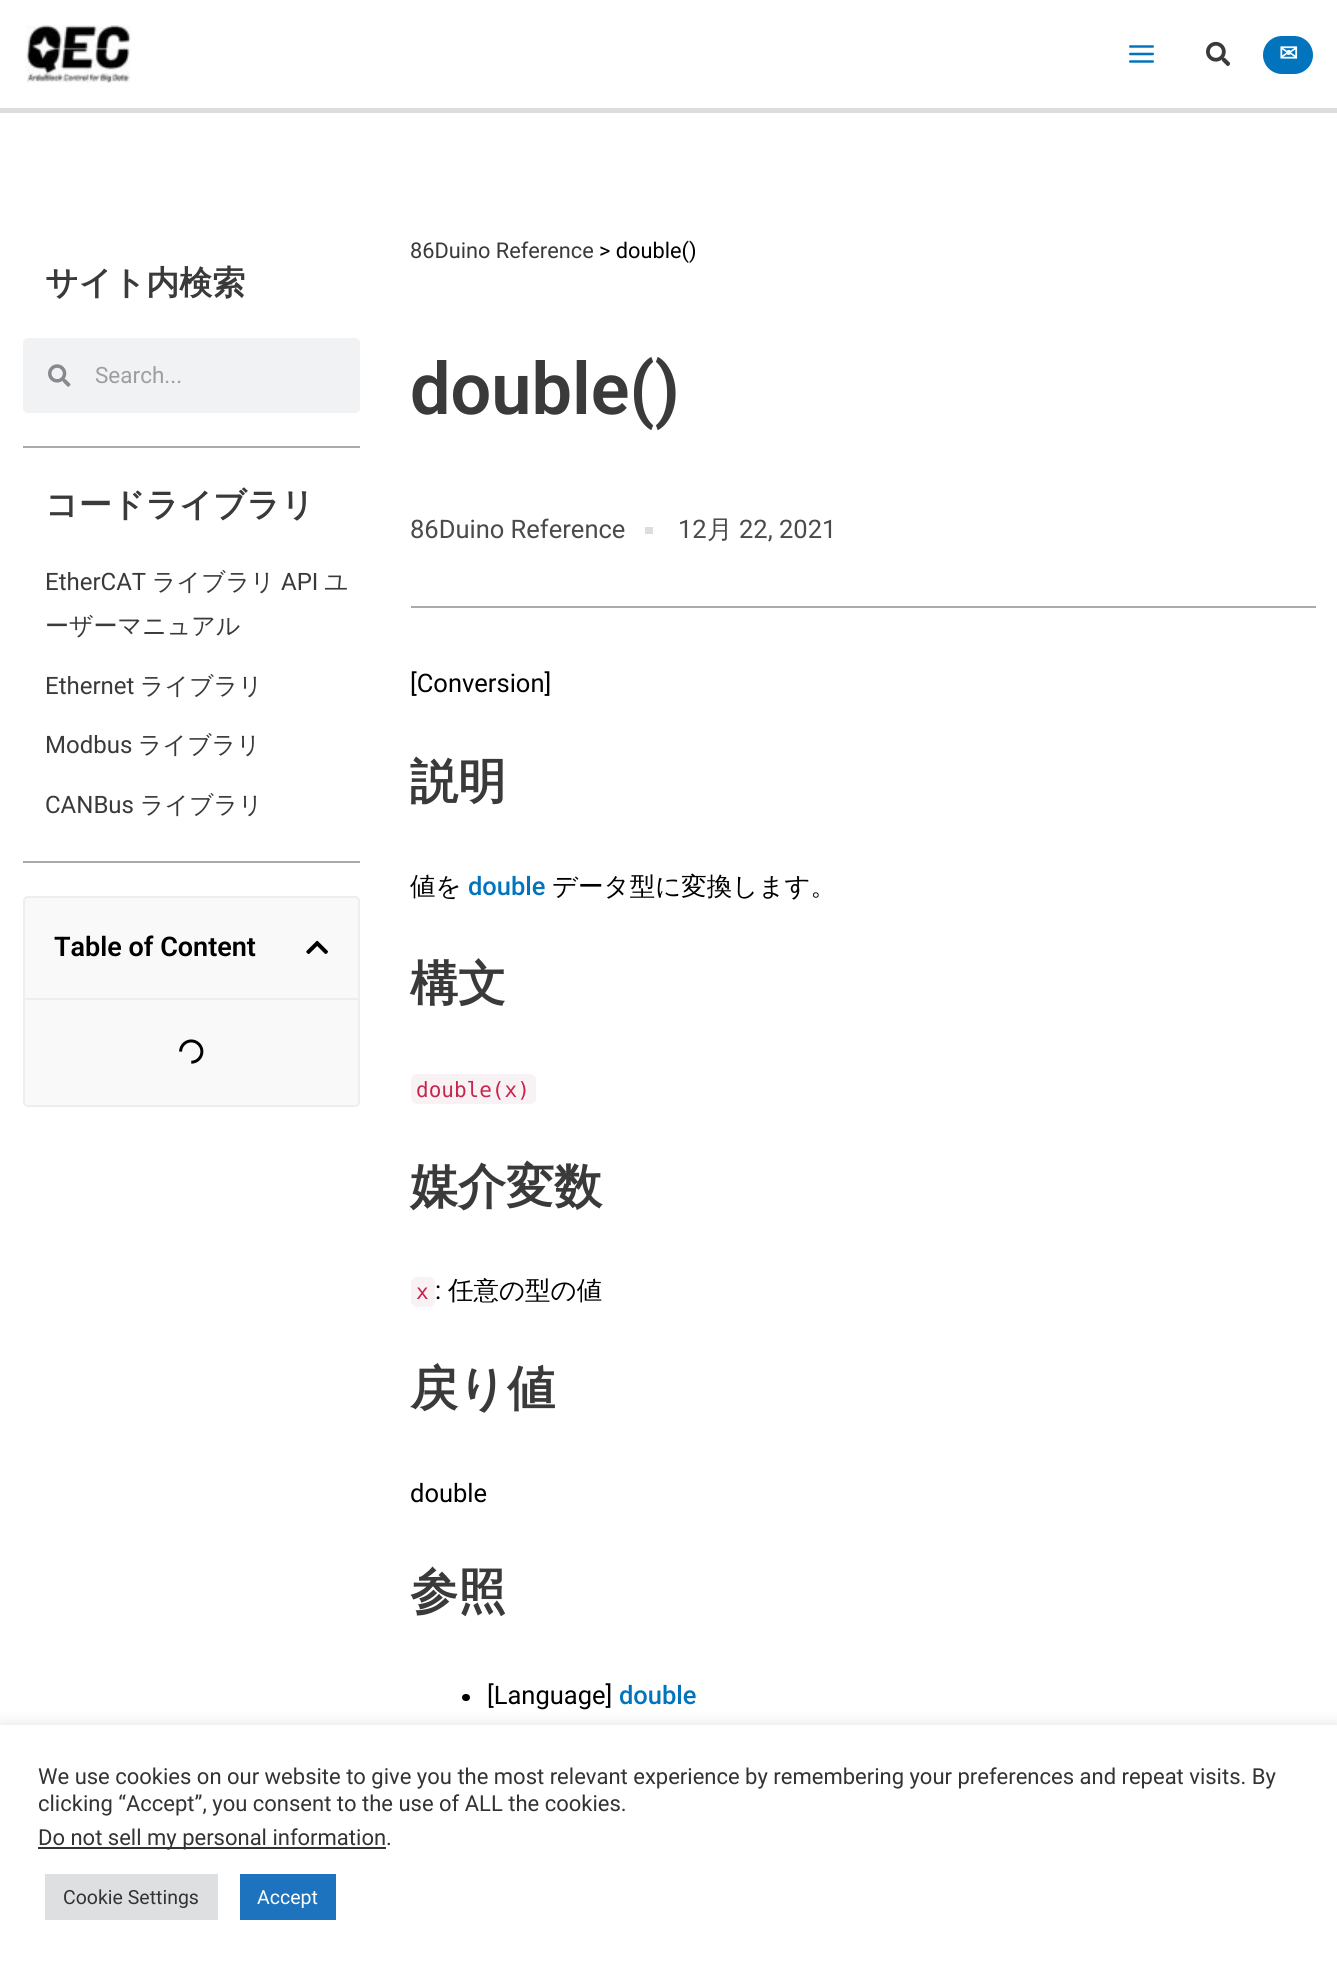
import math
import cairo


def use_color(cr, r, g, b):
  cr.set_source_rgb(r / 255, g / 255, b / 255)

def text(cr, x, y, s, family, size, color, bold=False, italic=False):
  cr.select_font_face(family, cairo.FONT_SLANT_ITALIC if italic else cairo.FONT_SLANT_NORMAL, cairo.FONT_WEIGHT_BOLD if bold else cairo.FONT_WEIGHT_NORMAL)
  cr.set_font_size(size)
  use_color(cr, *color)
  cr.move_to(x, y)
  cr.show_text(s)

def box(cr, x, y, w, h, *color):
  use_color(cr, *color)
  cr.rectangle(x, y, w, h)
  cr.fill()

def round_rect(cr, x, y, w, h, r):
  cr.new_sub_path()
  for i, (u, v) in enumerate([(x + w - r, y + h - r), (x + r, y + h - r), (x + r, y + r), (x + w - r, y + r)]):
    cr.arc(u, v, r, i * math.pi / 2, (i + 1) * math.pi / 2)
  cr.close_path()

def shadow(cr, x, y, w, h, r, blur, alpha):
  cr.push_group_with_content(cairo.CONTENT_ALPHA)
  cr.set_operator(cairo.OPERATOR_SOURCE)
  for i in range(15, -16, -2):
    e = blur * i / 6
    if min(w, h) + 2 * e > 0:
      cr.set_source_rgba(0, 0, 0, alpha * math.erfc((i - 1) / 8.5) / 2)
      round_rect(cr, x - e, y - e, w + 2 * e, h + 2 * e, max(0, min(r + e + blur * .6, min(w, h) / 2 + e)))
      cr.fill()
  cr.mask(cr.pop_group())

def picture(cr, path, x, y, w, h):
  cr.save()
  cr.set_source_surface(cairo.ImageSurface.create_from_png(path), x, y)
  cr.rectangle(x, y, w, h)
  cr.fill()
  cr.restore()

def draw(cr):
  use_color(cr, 255, 255, 255)
  cr.paint()
  box(cr, 0, 108, 1337, 5, 221, 221, 221)
  picture(cr, "img_01.png", 25, 25, 106, 58)
  picture(cr, "img_02.png", 1129, 45, 25, 18)
  picture(cr, "img_03.png", 1206, 41, 24, 26)
  use_color(cr, 2, 116, 190)
  round_rect(cr, 1263, 36, 50, 38, 19)
  cr.fill()
  use_color(cr, 241, 242, 243)
  round_rect(cr, 23, 338, 337, 75, 5)
  cr.fill()
  picture(cr, "img_04.png", 48, 364, 23, 23)
  box(cr, 23, 446, 337, 2, 170, 170, 170)
  box(cr, 23, 861, 337, 2, 170, 170, 170)
  use_color(cr, 249, 249, 249)
  round_rect(cr, 24, 897, 335, 209, 4)
  cr.fill_preserve()
  use_color(cr, 238, 238, 238)
  cr.stroke()
  box(cr, 24, 998, 335, 2, 238, 238, 238)
  picture(cr, "img_05.png", 306, 940, 22, 14)
  picture(cr, "img_06.png", 179, 1039, 25, 25)
  box(cr, 645, 527, 8, 7, 221, 221, 221)
  box(cr, 411, 606, 905, 2, 170, 170, 170)
  use_color(cr, 249, 242, 244)
  round_rect(cr, 411, 1074, 125, 30, 6)
  cr.fill()
  round_rect(cr, 411, 1277, 24, 30, 6)
  cr.fill()
  use_color(cr, 0, 0, 0)
  round_rect(cr, 462, 1694, 8, 7, 3.5)
  cr.fill()
  use_color(cr, 172, 171, 171)
  shadow(cr, 0, 1724, 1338, 240, 0, 7.5, 0.3)
  box(cr, 0, 1725, 1337, 239, 255, 255, 255)
  box(cr, 38, 1847, 348, 2, 51, 51, 51)
  box(cr, 45, 1874, 173, 46, 222, 223, 224)
  box(cr, 240, 1874, 96, 46, 30, 115, 190)
  text(cr, 1279, 61, "✉", "DejaVu Sans", 22.5, (255, 255, 255), bold=True)
  text(cr, 45, 294, "サイト内検索", "WenQuanYi Zen Hei", 33, (58, 58, 58), bold=True)
  text(cr, 95, 383, "Search...", "Roboto", 22.5, (158, 158, 158))
  text(cr, 45, 516, "コードライブラリ", "WenQuanYi Zen Hei", 33, (58, 58, 58), bold=True)
  text(cr, 45, 590, "EtherCAT", "Roboto", 24, (58, 58, 58))
  text(cr, 152, 590, "ライブラリ", "WenQuanYi Zen Hei Medium", 24, (58, 58, 58))
  text(cr, 281, 590, "API", "Roboto", 24, (58, 58, 58))
  text(cr, 324, 590, "ユ", "WenQuanYi Zen Hei Medium", 24, (58, 58, 58))
  text(cr, 45, 634, "ーザーマニュアル", "WenQuanYi Zen Hei Medium", 24, (58, 58, 58))
  text(cr, 45, 694, "Ethernet", "Roboto", 24, (58, 58, 58))
  text(cr, 140, 694, "ライブラリ", "WenQuanYi Zen Hei Medium", 24, (58, 58, 58))
  text(cr, 45, 753, "Modbus", "Roboto", 24, (58, 58, 58))
  text(cr, 138, 753, "ライブラリ", "WenQuanYi Zen Hei Medium", 24, (58, 58, 58))
  text(cr, 45, 813, "CANBus", "Roboto", 24, (58, 58, 58))
  text(cr, 140, 813, "ライブラリ", "WenQuanYi Zen Hei Medium", 24, (58, 58, 58))
  text(cr, 54, 956, "Table of Content", "Roboto SemiBold", 27, (0, 0, 0))
  text(cr, 410, 258, "86Duino Reference", "Roboto", 21.75, (58, 58, 58))
  text(cr, 599, 258, "> double()", "Roboto", 21.75, (0, 0, 0))
  text(cr, 410, 414, "double()", "Roboto SemiBold", 72, (58, 58, 58))
  text(cr, 410, 538, "86Duino Reference", "Roboto", 25.5, (74, 74, 74))
  text(cr, 678, 538, "12", "Roboto", 25.5, (74, 74, 74))
  text(cr, 707, 538, "月", "WenQuanYi Zen Hei Medium", 25.5, (74, 74, 74))
  text(cr, 739, 538, "22, 2021", "Roboto", 25.5, (74, 74, 74))
  text(cr, 410, 692, "[Conversion]", "Roboto", 25.5, (0, 0, 0))
  text(cr, 410, 798, "説明", "WenQuanYi Zen Hei", 48, (58, 58, 58), bold=True)
  text(cr, 410, 895, "値を", "WenQuanYi Zen Hei Medium", 25.5, (0, 0, 0))
  text(cr, 468, 895, "double", "Roboto Medium", 25.5, (2, 116, 190))
  text(cr, 552, 895, "データ型に変換します。", "WenQuanYi Zen Hei Medium", 25.5, (0, 0, 0))
  text(cr, 410, 1000, "構文", "WenQuanYi Zen Hei", 48, (58, 58, 58), bold=True)
  text(cr, 416, 1097, "double(x)", "DejaVu Sans Mono", 21, (199, 37, 78))
  text(cr, 410, 1203, "媒介変数", "WenQuanYi Zen Hei", 48, (58, 58, 58), bold=True)
  text(cr, 416, 1299, "x", "DejaVu Sans Mono", 21, (199, 37, 78))
  text(cr, 435, 1299, ":", "Roboto", 25.5, (0, 0, 0))
  text(cr, 448, 1299, "任意の型の値", "WenQuanYi Zen Hei Medium", 25.5, (0, 0, 0))
  text(cr, 410, 1405, "戻り値", "WenQuanYi Zen Hei", 48, (58, 58, 58), bold=True)
  text(cr, 410, 1502, "double", "Roboto", 25.5, (0, 0, 0))
  text(cr, 410, 1608, "参照", "WenQuanYi Zen Hei", 48, (58, 58, 58), bold=True)
  text(cr, 487, 1704, "[Language]", "Roboto", 25.5, (0, 0, 0))
  text(cr, 619, 1704, "double", "Roboto Medium", 25.5, (2, 116, 190))
  text(cr, 38, 1784, "We use cookies on our website to give you the most relevant experience by remembering your preferences and repeat visits. By", "Roboto", 22, (51, 51, 51))
  text(cr, 38, 1811, "clicking “Accept”, you consent to the use of ALL the cookies.", "Roboto", 22, (51, 51, 51))
  text(cr, 38, 1845, "Do not sell my personal information.", "Roboto", 22, (51, 51, 51))
  text(cr, 63, 1904, "Cookie Settings", "Roboto", 19.5, (51, 51, 51))
  text(cr, 257, 1904, "Accept", "Roboto", 19.5, (255, 255, 255))


surface = cairo.ImageSurface(cairo.FORMAT_RGB24, 1337, 1964)
cr = cairo.Context(surface)
options = cairo.FontOptions()
options.set_hint_metrics(cairo.HINT_METRICS_OFF)
options.set_hint_style(cairo.HINT_STYLE_NONE)
cr.set_font_options(options)
cr.set_miter_limit(4)
draw(cr)
surface.write_to_png("out.png")
